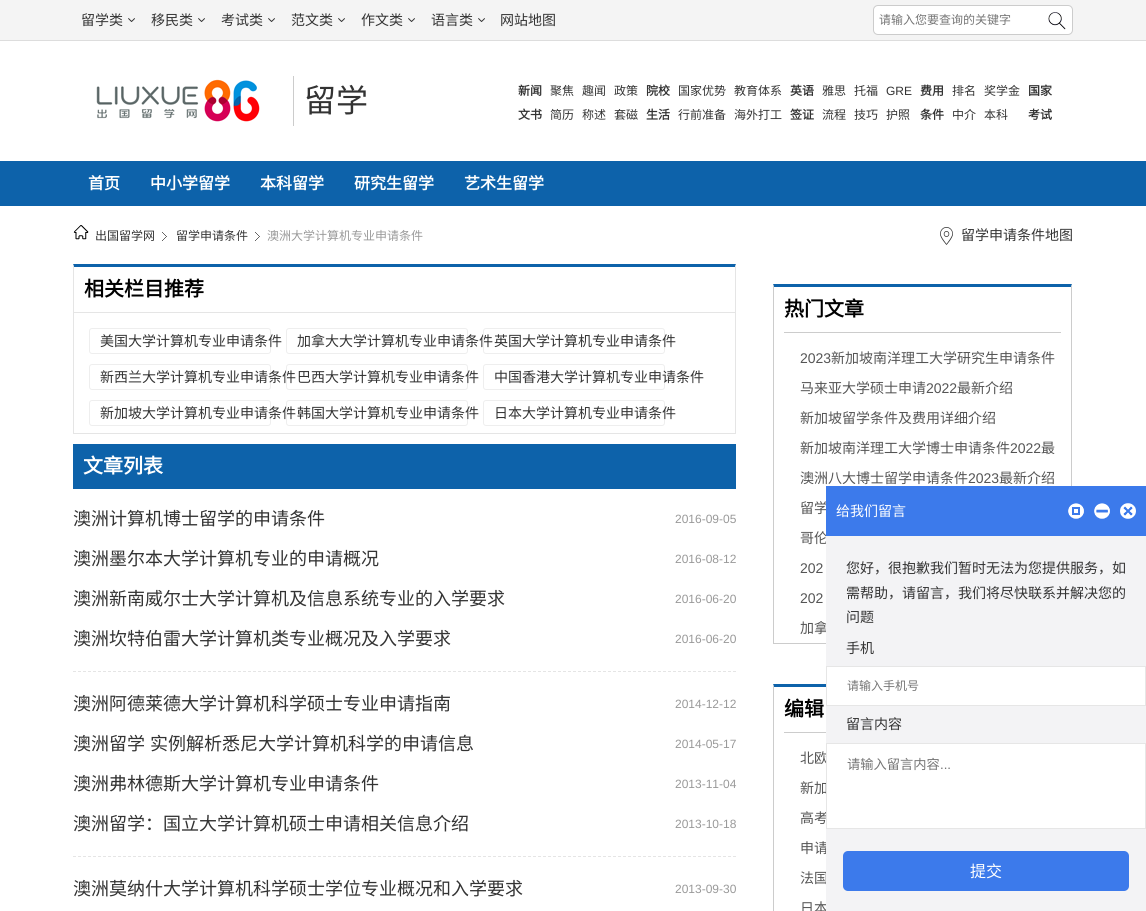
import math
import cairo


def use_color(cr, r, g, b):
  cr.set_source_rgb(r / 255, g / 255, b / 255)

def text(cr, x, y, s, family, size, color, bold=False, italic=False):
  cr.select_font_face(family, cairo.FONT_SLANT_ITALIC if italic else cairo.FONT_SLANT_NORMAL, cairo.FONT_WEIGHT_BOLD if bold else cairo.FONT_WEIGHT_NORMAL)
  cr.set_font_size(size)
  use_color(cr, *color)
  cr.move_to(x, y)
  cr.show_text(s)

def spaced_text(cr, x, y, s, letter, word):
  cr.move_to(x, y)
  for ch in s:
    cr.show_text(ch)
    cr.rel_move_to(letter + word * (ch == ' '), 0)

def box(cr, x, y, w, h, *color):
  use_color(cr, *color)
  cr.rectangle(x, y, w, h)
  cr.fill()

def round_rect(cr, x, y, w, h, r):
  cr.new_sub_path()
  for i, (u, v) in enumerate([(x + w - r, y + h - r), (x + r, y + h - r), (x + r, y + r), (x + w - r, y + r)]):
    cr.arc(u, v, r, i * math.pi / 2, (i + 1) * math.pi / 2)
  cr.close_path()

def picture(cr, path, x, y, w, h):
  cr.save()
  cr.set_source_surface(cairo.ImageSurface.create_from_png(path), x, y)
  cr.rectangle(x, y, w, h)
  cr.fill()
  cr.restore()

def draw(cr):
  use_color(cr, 255, 255, 255)
  cr.paint()
  box(cr, 0, 0, 1146, 40, 244, 244, 244)
  box(cr, 0, 40, 1146, 1, 221, 221, 221)
  picture(cr, "img_01.png", 128, 18, 7, 4)
  picture(cr, "img_01.png", 198, 18, 7, 4)
  picture(cr, "img_01.png", 268, 18, 7, 4)
  picture(cr, "img_01.png", 338, 18, 7, 4)
  picture(cr, "img_01.png", 408, 18, 7, 4)
  picture(cr, "img_01.png", 478, 18, 7, 4)
  use_color(cr, 255, 255, 255)
  round_rect(cr, 873.5, 5.5, 199, 29, 4.5)
  cr.fill_preserve()
  use_color(cr, 204, 204, 204)
  cr.set_line_width(1)
  cr.stroke()
  picture(cr, "img_02.png", 1048, 12, 18, 18)
  picture(cr, "img_03.png", 96, 79, 164, 43)
  box(cr, 293, 76, 1, 50, 204, 204, 204)
  box(cr, 0, 161, 1146, 45, 13, 98, 170)
  picture(cr, "img_04.png", 73, 225, 16, 15)
  picture(cr, "img_05.png", 162, 232, 5, 9)
  picture(cr, "img_05.png", 255, 232, 5, 9)
  picture(cr, "img_06.png", 940, 227, 13, 18)
  cr.new_path()
  cr.move_to(73, 264)
  cr.line_to(736, 264)
  cr.line_to(735, 267)
  cr.line_to(74, 267)
  cr.close_path()
  cr.fill()
  use_color(cr, 229, 229, 229)
  cr.new_path()
  cr.move_to(736, 264)
  cr.line_to(736, 434)
  cr.line_to(735, 433)
  cr.line_to(735, 267)
  cr.close_path()
  cr.fill()
  box(cr, 73, 433, 663, 1, 229, 229, 229)
  cr.new_path()
  cr.move_to(73, 434)
  cr.line_to(73, 264)
  cr.line_to(74, 267)
  cr.line_to(74, 433)
  cr.close_path()
  cr.fill()
  box(cr, 74, 312, 661, 1, 229, 229, 229)
  round_rect(cr, 89.5, 328.5, 181, 25, 2.5)
  use_color(cr, 238, 238, 238)
  cr.stroke()
  round_rect(cr, 286.5, 328.5, 181, 25, 2.5)
  cr.stroke()
  round_rect(cr, 89.5, 364.5, 181, 25, 2.5)
  cr.stroke()
  round_rect(cr, 483.5, 364.5, 181, 25, 2.5)
  cr.stroke()
  round_rect(cr, 89.5, 400.5, 181, 25, 2.5)
  cr.stroke()
  round_rect(cr, 483.5, 400.5, 181, 25, 2.5)
  cr.stroke()
  box(cr, 73, 444, 663, 45, 13, 98, 170)
  cr.new_path()
  cr.move_to(73, 671.5)
  cr.line_to(736, 671.5)
  use_color(cr, 229, 229, 229)
  cr.set_dash([3, 2])
  cr.stroke()
  cr.new_path()
  cr.move_to(73, 856.5)
  cr.line_to(736, 856.5)
  cr.stroke()
  use_color(cr, 13, 98, 170)
  cr.new_path()
  cr.move_to(773, 284)
  cr.line_to(1072, 284)
  cr.line_to(1071, 287)
  cr.line_to(774, 287)
  cr.close_path()
  cr.fill()
  use_color(cr, 204, 204, 204)
  cr.new_path()
  cr.move_to(1072, 284)
  cr.line_to(1072, 644)
  cr.line_to(1071, 643)
  cr.line_to(1071, 287)
  cr.close_path()
  cr.fill()
  box(cr, 773, 643, 53, 1, 204, 204, 204)
  cr.new_path()
  cr.move_to(773, 644)
  cr.line_to(773, 284)
  cr.line_to(774, 287)
  cr.line_to(774, 643)
  cr.close_path()
  cr.fill()
  box(cr, 784, 332, 277, 1, 204, 204, 204)
  use_color(cr, 13, 98, 170)
  cr.new_path()
  cr.move_to(773, 684)
  cr.line_to(1072, 684)
  cr.line_to(1071, 687)
  cr.line_to(774, 687)
  cr.close_path()
  cr.fill()
  use_color(cr, 204, 204, 204)
  cr.new_path()
  cr.move_to(773, 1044)
  cr.line_to(773, 684)
  cr.line_to(774, 687)
  cr.line_to(774, 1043)
  cr.close_path()
  cr.fill()
  box(cr, 784, 732, 42, 1, 204, 204, 204)
  text(cr, 81, 25, "留学类", "Noto Sans CJK SC", 14, (51, 51, 51))
  text(cr, 151, 25, "移民类", "Noto Sans CJK SC", 14, (51, 51, 51))
  text(cr, 221, 25, "考试类", "Noto Sans CJK SC", 14, (51, 51, 51))
  text(cr, 291, 25, "范文类", "Noto Sans CJK SC", 14, (51, 51, 51))
  text(cr, 361, 25, "作文类", "Noto Sans CJK SC", 14, (51, 51, 51))
  text(cr, 431, 25, "语言类", "Noto Sans CJK SC", 14, (51, 51, 51))
  text(cr, 500, 25, "网站地图", "Noto Sans CJK SC", 14, (51, 51, 51))
  text(cr, 879, 24, "请输入您要查询的关键字", "Noto Sans CJK SC", 12, (117, 117, 117))
  text(cr, 304, 112, "留学", "Noto Sans CJK SC", 32, (51, 51, 51))
  text(cr, 518, 95, "新闻", "Noto Sans CJK SC", 12, (51, 51, 51), bold=True)
  text(cr, 518, 119, "文书", "Noto Sans CJK SC", 12, (51, 51, 51), bold=True)
  text(cr, 550, 95, "聚焦", "Noto Sans CJK SC", 12, (51, 51, 51))
  text(cr, 550, 119, "简历", "Noto Sans CJK SC", 12, (51, 51, 51))
  text(cr, 582, 95, "趣闻", "Noto Sans CJK SC", 12, (51, 51, 51))
  text(cr, 582, 119, "称述", "Noto Sans CJK SC", 12, (51, 51, 51))
  text(cr, 614, 95, "政策", "Noto Sans CJK SC", 12, (51, 51, 51))
  text(cr, 614, 119, "套磁", "Noto Sans CJK SC", 12, (51, 51, 51))
  text(cr, 646, 95, "院校", "Noto Sans CJK SC", 12, (51, 51, 51), bold=True)
  text(cr, 646, 119, "生活", "Noto Sans CJK SC", 12, (51, 51, 51), bold=True)
  text(cr, 678, 95, "国家优势", "Noto Sans CJK SC", 12, (51, 51, 51))
  text(cr, 678, 119, "行前准备", "Noto Sans CJK SC", 12, (51, 51, 51))
  text(cr, 734, 95, "教育体系", "Noto Sans CJK SC", 12, (51, 51, 51))
  text(cr, 734, 119, "海外打工", "Noto Sans CJK SC", 12, (51, 51, 51))
  text(cr, 790, 95, "英语", "Noto Sans CJK SC", 12, (51, 51, 51), bold=True)
  text(cr, 790, 119, "签证", "Noto Sans CJK SC", 12, (51, 51, 51), bold=True)
  text(cr, 822, 95, "雅思", "Noto Sans CJK SC", 12, (51, 51, 51))
  text(cr, 822, 119, "流程", "Noto Sans CJK SC", 12, (51, 51, 51))
  text(cr, 854, 95, "托福", "Noto Sans CJK SC", 12, (51, 51, 51))
  text(cr, 854, 119, "技巧", "Noto Sans CJK SC", 12, (51, 51, 51))
  text(cr, 886, 95, "GRE", "Liberation Sans", 12, (51, 51, 51))
  text(cr, 886, 119, "护照", "Noto Sans CJK SC", 12, (51, 51, 51))
  text(cr, 920, 95, "费用", "Noto Sans CJK SC", 12, (51, 51, 51), bold=True)
  text(cr, 920, 119, "条件", "Noto Sans CJK SC", 12, (51, 51, 51), bold=True)
  text(cr, 952, 95, "排名", "Noto Sans CJK SC", 12, (51, 51, 51))
  text(cr, 952, 119, "中介", "Noto Sans CJK SC", 12, (51, 51, 51))
  text(cr, 984, 95, "奖学金", "Noto Sans CJK SC", 12, (51, 51, 51))
  text(cr, 984, 119, "本科", "Noto Sans CJK SC", 12, (51, 51, 51))
  text(cr, 1028, 95, "国家", "Noto Sans CJK SC", 12, (51, 51, 51), bold=True)
  text(cr, 1028, 119, "考试", "Noto Sans CJK SC", 12, (51, 51, 51), bold=True)
  text(cr, 88, 189, "首页", "Noto Sans CJK SC", 16, (255, 255, 255), bold=True)
  text(cr, 150, 189, "中小学留学", "Noto Sans CJK SC", 16, (255, 255, 255), bold=True)
  text(cr, 260, 189, "本科留学", "Noto Sans CJK SC", 16, (255, 255, 255), bold=True)
  text(cr, 354, 189, "研究生留学", "Noto Sans CJK SC", 16, (255, 255, 255), bold=True)
  text(cr, 464, 189, "艺术生留学", "Noto Sans CJK SC", 16, (255, 255, 255), bold=True)
  text(cr, 95, 240, "出国留学网", "Noto Sans CJK SC", 12, (51, 51, 51))
  text(cr, 176, 240, "留学申请条件", "Noto Sans CJK SC", 12, (51, 51, 51))
  text(cr, 267, 240, "澳洲大学计算机专业申请条件", "Noto Sans CJK SC", 12, (153, 153, 153))
  text(cr, 961, 240, "留学申请条件地图", "Noto Sans CJK SC", 14, (51, 51, 51))
  text(cr, 84, 296, "相关栏目推荐", "Noto Sans CJK SC", 20, (0, 0, 0), bold=True)
  text(cr, 100, 346, "美国大学计算机专业申请条件", "Noto Sans CJK SC", 14, (51, 51, 51))
  text(cr, 297, 346, "加拿大大学计算机专业申请条件", "Noto Sans CJK SC", 14, (51, 51, 51))
  round_rect(cr, 483.5, 328.5, 181, 25, 2.5)
  use_color(cr, 238, 238, 238)
  cr.set_dash([])
  cr.stroke()
  text(cr, 494, 346, "英国大学计算机专业申请条件", "Noto Sans CJK SC", 14, (51, 51, 51))
  text(cr, 100, 382, "新西兰大学计算机专业申请条件", "Noto Sans CJK SC", 14, (51, 51, 51))
  round_rect(cr, 286.5, 364.5, 181, 25, 2.5)
  use_color(cr, 238, 238, 238)
  cr.stroke()
  text(cr, 297, 382, "巴西大学计算机专业申请条件", "Noto Sans CJK SC", 14, (51, 51, 51))
  text(cr, 494, 382, "中国香港大学计算机专业申请条件", "Noto Sans CJK SC", 14, (51, 51, 51))
  text(cr, 100, 418, "新加坡大学计算机专业申请条件", "Noto Sans CJK SC", 14, (51, 51, 51))
  round_rect(cr, 286.5, 400.5, 181, 25, 2.5)
  use_color(cr, 238, 238, 238)
  cr.stroke()
  text(cr, 297, 418, "韩国大学计算机专业申请条件", "Noto Sans CJK SC", 14, (51, 51, 51))
  text(cr, 494, 418, "日本大学计算机专业申请条件", "Noto Sans CJK SC", 14, (51, 51, 51))
  text(cr, 83, 473, "文章列表", "Noto Sans CJK SC", 20, (255, 255, 255), bold=True)
  text(cr, 73, 525, "澳洲计算机博士留学的申请条件", "Noto Sans CJK SC", 18, (51, 51, 51))
  text(cr, 675, 523, "2016-09-05", "Liberation Sans", 12, (153, 153, 153))
  text(cr, 73, 565, "澳洲墨尔本大学计算机专业的申请概况", "Noto Sans CJK SC", 18, (51, 51, 51))
  text(cr, 675, 563, "2016-08-12", "Liberation Sans", 12, (153, 153, 153))
  text(cr, 73, 605, "澳洲新南威尔士大学计算机及信息系统专业的入学要求", "Noto Sans CJK SC", 18, (51, 51, 51))
  text(cr, 675, 603, "2016-06-20", "Liberation Sans", 12, (153, 153, 153))
  text(cr, 73, 645, "澳洲坎特伯雷大学计算机类专业概况及入学要求", "Noto Sans CJK SC", 18, (51, 51, 51))
  text(cr, 675, 643, "2016-06-20", "Liberation Sans", 12, (153, 153, 153))
  text(cr, 73, 710, "澳洲阿德莱德大学计算机科学硕士专业申请指南", "Noto Sans CJK SC", 18, (51, 51, 51))
  text(cr, 675, 708, "2014-12-12", "Liberation Sans", 12, (153, 153, 153))
  cr.select_font_face("Noto Sans CJK SC")
  cr.set_font_size(18)
  use_color(cr, 51, 51, 51)
  spaced_text(cr, 73, 750, "澳洲留学 实例解析悉尼大学计算机科学的申请信息", 0, 1)
  text(cr, 675, 748, "2014-05-17", "Liberation Sans", 12, (153, 153, 153))
  text(cr, 73, 790, "澳洲弗林德斯大学计算机专业申请条件", "Noto Sans CJK SC", 18, (51, 51, 51))
  text(cr, 675, 788, "2013-11-04", "Liberation Sans", 12, (153, 153, 153))
  text(cr, 73, 830, "澳洲留学：国立大学计算机硕士申请相关信息介绍", "Noto Sans CJK SC", 18, (51, 51, 51))
  text(cr, 675, 828, "2013-10-18", "Liberation Sans", 12, (153, 153, 153))
  text(cr, 73, 895, "澳洲莫纳什大学计算机科学硕士学位专业概况和入学要求", "Noto Sans CJK SC", 18, (51, 51, 51))
  text(cr, 675, 893, "2013-09-30", "Liberation Sans", 12, (153, 153, 153))
  text(cr, 784, 316, "热门文章", "Noto Sans CJK SC", 20, (0, 0, 0), bold=True)
  text(cr, 800, 363, "2023", "Liberation Sans", 14, (85, 85, 85))
  text(cr, 831, 363, "新加坡南洋理工大学研究生申请条件", "Noto Sans CJK SC", 14, (85, 85, 85))
  text(cr, 800, 393, "马来亚大学硕士申请", "Noto Sans CJK SC", 14, (85, 85, 85))
  text(cr, 926, 393, "2022", "Liberation Sans", 14, (85, 85, 85))
  text(cr, 957, 393, "最新介绍", "Noto Sans CJK SC", 14, (85, 85, 85))
  text(cr, 800, 423, "新加坡留学条件及费用详细介绍", "Noto Sans CJK SC", 14, (85, 85, 85))
  text(cr, 800, 453, "新加坡南洋理工大学博士申请条件", "Noto Sans CJK SC", 14, (85, 85, 85))
  text(cr, 1010, 453, "2022", "Liberation Sans", 14, (85, 85, 85))
  text(cr, 1041, 453, "最", "Noto Sans CJK SC", 14, (85, 85, 85))
  text(cr, 800, 483, "澳洲八大博士留学申请条件", "Noto Sans CJK SC", 14, (85, 85, 85))
  text(cr, 968, 483, "2023", "Liberation Sans", 14, (85, 85, 85))
  text(cr, 999, 483, "最新介绍", "Noto Sans CJK SC", 14, (85, 85, 85))
  text(cr, 800, 513, "留学", "Noto Sans CJK SC", 14, (85, 85, 85))
  text(cr, 800, 543, "哥伦", "Noto Sans CJK SC", 14, (85, 85, 85))
  text(cr, 800, 573, "202", "Liberation Sans", 14, (85, 85, 85))
  text(cr, 800, 603, "202", "Liberation Sans", 14, (85, 85, 85))
  text(cr, 800, 633, "加拿", "Noto Sans CJK SC", 14, (85, 85, 85))
  text(cr, 784, 716, "编辑", "Noto Sans CJK SC", 20, (0, 0, 0), bold=True)
  text(cr, 800, 763, "北欧", "Noto Sans CJK SC", 14, (85, 85, 85))
  text(cr, 800, 793, "新加", "Noto Sans CJK SC", 14, (85, 85, 85))
  text(cr, 800, 823, "高考", "Noto Sans CJK SC", 14, (85, 85, 85))
  text(cr, 800, 853, "申请", "Noto Sans CJK SC", 14, (85, 85, 85))
  text(cr, 800, 883, "法国", "Noto Sans CJK SC", 14, (85, 85, 85))
  text(cr, 800, 913, "日本", "Noto Sans CJK SC", 14, (85, 85, 85))
  box(cr, 826, 536, 320, 375, 243, 243, 245)
  box(cr, 826, 486, 320, 50, 60, 122, 235)
  text(cr, 836, 516, "给我们留言", "Noto Sans CJK SC", 14, (255, 255, 255))
  picture(cr, "img_07.png", 1068, 503, 16, 16)
  picture(cr, "img_08.png", 1094, 503, 16, 16)
  picture(cr, "img_09.png", 1120, 503, 16, 16)
  text(cr, 846, 573, "您好，很抱歉我们暂时无法为您提供服务，如", "Noto Sans CJK SC", 14, (51, 51, 51))
  text(cr, 846, 598, "需帮助，请留言，我们将尽快联系并解决您的", "Noto Sans CJK SC", 14, (51, 51, 51))
  text(cr, 846, 622, "问题", "Noto Sans CJK SC", 14, (51, 51, 51))
  text(cr, 846, 653, "手机", "Noto Sans CJK SC", 14, (51, 51, 51))
  use_color(cr, 255, 255, 255)
  cr.rectangle(826.5, 666.5, 319, 39)
  cr.fill_preserve()
  use_color(cr, 230, 230, 230)
  cr.stroke()
  text(cr, 847, 690, "请输入手机号", "Noto Sans CJK SC", 12, (117, 117, 117))
  text(cr, 846, 729, "留言内容", "Noto Sans CJK SC", 14, (51, 51, 51))
  use_color(cr, 255, 255, 255)
  cr.rectangle(826.5, 743.5, 319, 85)
  cr.fill_preserve()
  use_color(cr, 230, 230, 230)
  cr.stroke()
  text(cr, 847, 769, "请输入留言内容", "Noto Sans CJK SC", 13.25, (117, 117, 117))
  text(cr, 940, 769, "...", "Liberation Sans", 13.25, (117, 117, 117))
  use_color(cr, 60, 122, 235)
  round_rect(cr, 843, 851, 286, 40, 5)
  cr.fill()
  text(cr, 970, 877, "提交", "Noto Sans CJK SC", 16, (255, 255, 255))


surface = cairo.ImageSurface(cairo.FORMAT_RGB24, 1146, 911)
cr = cairo.Context(surface)
options = cairo.FontOptions()
options.set_hint_metrics(cairo.HINT_METRICS_OFF)
options.set_hint_style(cairo.HINT_STYLE_NONE)
cr.set_font_options(options)
cr.set_miter_limit(4)
draw(cr)
surface.write_to_png("out.png")
